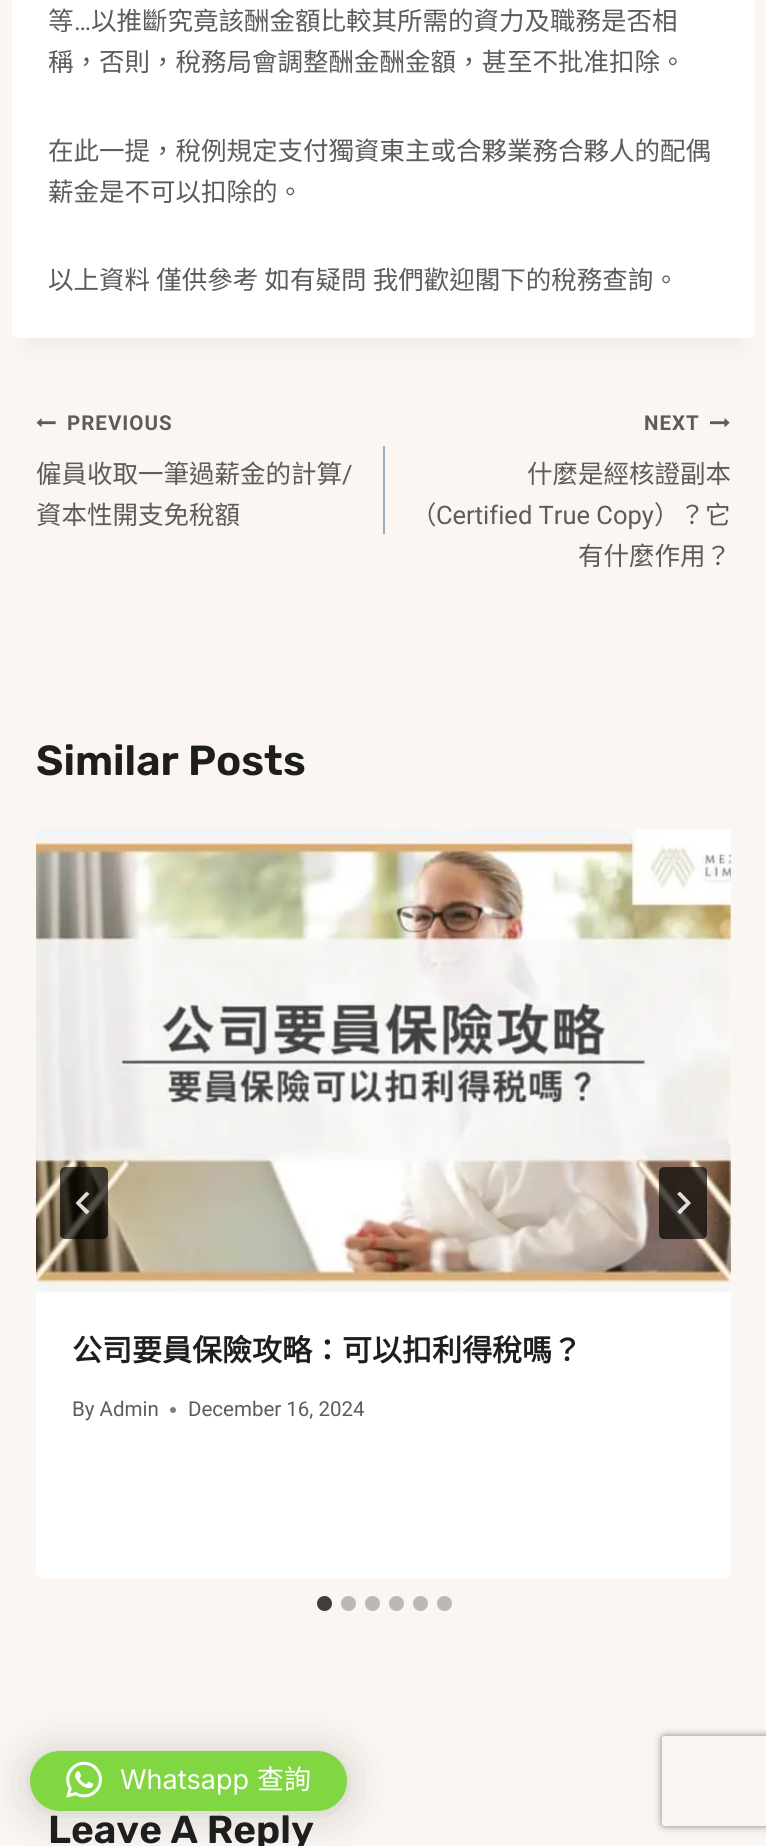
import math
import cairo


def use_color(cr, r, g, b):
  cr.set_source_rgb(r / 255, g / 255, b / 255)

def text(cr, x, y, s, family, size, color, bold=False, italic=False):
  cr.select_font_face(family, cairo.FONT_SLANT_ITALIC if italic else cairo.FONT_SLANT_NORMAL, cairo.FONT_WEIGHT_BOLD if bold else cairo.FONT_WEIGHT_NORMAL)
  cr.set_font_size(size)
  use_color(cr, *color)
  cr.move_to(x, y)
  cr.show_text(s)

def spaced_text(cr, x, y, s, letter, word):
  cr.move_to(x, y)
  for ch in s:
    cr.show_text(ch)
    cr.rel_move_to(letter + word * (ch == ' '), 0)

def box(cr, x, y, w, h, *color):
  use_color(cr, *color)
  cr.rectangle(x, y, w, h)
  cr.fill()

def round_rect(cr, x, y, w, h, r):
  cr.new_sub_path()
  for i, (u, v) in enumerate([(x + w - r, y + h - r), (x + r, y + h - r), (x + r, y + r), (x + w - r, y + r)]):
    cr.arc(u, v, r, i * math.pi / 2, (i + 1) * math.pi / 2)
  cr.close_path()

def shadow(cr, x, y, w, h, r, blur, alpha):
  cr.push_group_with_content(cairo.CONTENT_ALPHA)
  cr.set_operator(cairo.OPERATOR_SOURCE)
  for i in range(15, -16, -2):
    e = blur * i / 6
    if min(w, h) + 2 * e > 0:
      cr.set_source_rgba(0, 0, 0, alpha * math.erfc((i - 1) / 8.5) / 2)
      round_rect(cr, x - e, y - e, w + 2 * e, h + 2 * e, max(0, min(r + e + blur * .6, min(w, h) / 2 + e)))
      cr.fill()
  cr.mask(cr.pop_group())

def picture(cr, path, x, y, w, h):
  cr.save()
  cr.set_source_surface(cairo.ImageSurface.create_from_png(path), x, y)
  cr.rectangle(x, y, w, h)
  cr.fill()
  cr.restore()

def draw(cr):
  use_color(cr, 251, 246, 241)
  cr.paint()
  use_color(cr, 0, 0, 0)
  shadow(cr, 27, -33, 713, 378, 0, 11, 0.05)
  use_color(cr, 255, 255, 255)
  round_rect(cr, 12, -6, 743, 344, 6)
  cr.fill()
  picture(cr, "img_01.png", 36, 418, 20, 9)
  box(cr, 383, 446, 2, 88, 160, 174, 192)
  picture(cr, "img_02.png", 710, 418, 20, 9)
  use_color(cr, 255, 255, 255)
  round_rect(cr, 36, 830, 695, 748, 6)
  cr.fill()
  picture(cr, "img_03.png", 36, 829, 695, 464)
  cr.set_source_rgba(0, 0, 0, 0.68)
  round_rect(cr, 60, 1167, 48, 72, 5)
  cr.fill()
  cr.set_source_rgba(1, 1, 1, 0.85)
  cr.new_path()
  cr.move_to(86.5, 1191.5)
  cr.line_to(89.5, 1194)
  cr.line_to(80.5, 1203)
  cr.line_to(89.5, 1211.5)
  cr.line_to(86.5, 1214.5)
  cr.line_to(75.5, 1203)
  cr.close_path()
  cr.fill()
  cr.set_source_rgba(0, 0, 0, 0.68)
  round_rect(cr, 659, 1167, 48, 72, 5)
  cr.fill()
  cr.set_source_rgba(1, 1, 1, 0.85)
  cr.new_path()
  cr.move_to(680, 1191.5)
  cr.line_to(677, 1194)
  cr.line_to(686, 1203)
  cr.line_to(677, 1211.5)
  cr.line_to(680, 1214.5)
  cr.line_to(691, 1203)
  cr.close_path()
  cr.fill()
  use_color(cr, 125, 125, 125)
  cr.arc(173, 1410, 3, 0, 2 * math.pi)
  cr.fill()
  use_color(cr, 63, 62, 60)
  cr.arc(324.5, 1603.5, 7.5, 0, 2 * math.pi)
  cr.fill()
  use_color(cr, 188, 185, 181)
  cr.arc(348.5, 1603.5, 7.5, 0, 2 * math.pi)
  cr.fill()
  cr.arc(372.5, 1603.5, 7.5, 0, 2 * math.pi)
  cr.fill()
  cr.arc(396.5, 1603.5, 7.5, 0, 2 * math.pi)
  cr.fill()
  cr.arc(420.5, 1603.5, 7.5, 0, 2 * math.pi)
  cr.fill()
  cr.arc(444.5, 1603.5, 7.5, 0, 2 * math.pi)
  cr.fill()
  use_color(cr, 0, 0, 0)
  shadow(cr, 30, 1754, 317, 60, 30, 24, 0.16)
  shadow(cr, 30, 1752, 317, 60, 30, 4.5, 0.06)
  use_color(cr, 129, 215, 66)
  round_rect(cr, 30, 1751, 317, 60, 30)
  cr.fill()
  picture(cr, "img_04.png", 66, 1761, 36, 37)
  cr.save()
  cr.set_fill_rule(cairo.FILL_RULE_EVEN_ODD)
  cr.new_path()
  cr.move_to(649, 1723)
  cr.line_to(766, 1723)
  cr.line_to(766, 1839)
  cr.line_to(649, 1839)
  cr.close_path()
  cr.move_to(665, 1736)
  cr.line_to(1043, 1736)
  cr.curve_to(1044.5, 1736, 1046, 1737.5, 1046, 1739)
  cr.line_to(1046, 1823)
  cr.curve_to(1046, 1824.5, 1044.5, 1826, 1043, 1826)
  cr.line_to(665, 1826)
  cr.curve_to(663.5, 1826, 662, 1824.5, 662, 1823)
  cr.line_to(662, 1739)
  cr.curve_to(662, 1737.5, 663.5, 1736, 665, 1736)
  cr.close_path()
  cr.clip()
  use_color(cr, 128, 128, 128)
  shadow(cr, 662, 1736, 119, 90, 3, 4, 1)
  cr.restore()
  text(cr, 48, 30, "等", "Noto Sans CJK HK", 25.5, (92, 92, 92))
  text(cr, 74, 30, "…", "Roboto", 25.5, (92, 92, 92))
  text(cr, 91, 30, "以推斷究竟該酬金額比較其所需的資力及職務是否相", "Noto Sans CJK HK", 25.5, (92, 92, 92))
  text(cr, 48, 71, "稱，否則，稅務局會調整酬金酬金額，甚至不批准扣除。", "Noto Sans CJK HK", 25.5, (92, 92, 92))
  text(cr, 48, 160, "在此一提，稅例規定支付獨資東主或合夥業務合夥人的配偶", "Noto Sans CJK HK", 25.5, (92, 92, 92))
  text(cr, 48, 201, "薪金是不可以扣除的。", "Noto Sans CJK HK", 25.5, (92, 92, 92))
  spaced_text(cr, 48, 289, "以上資料 僅供參考 如有疑問 我們歡迎閣下的稅務查詢。", 0, 0.5)
  cr.select_font_face("Roboto", cairo.FONT_SLANT_NORMAL, cairo.FONT_WEIGHT_BOLD)
  cr.set_font_size(20.5)
  spaced_text(cr, 67, 430, "PREVIOUS", 1, 0)
  text(cr, 36, 483, "僱員收取一筆過薪金的計算", "Noto Sans CJK HK", 25.5, (92, 92, 92))
  text(cr, 342, 483, "/", "Roboto", 25.5, (92, 92, 92))
  text(cr, 36, 524, "資本性開支免稅額", "Noto Sans CJK HK", 25.5, (92, 92, 92))
  cr.select_font_face("Roboto", cairo.FONT_SLANT_NORMAL, cairo.FONT_WEIGHT_BOLD)
  cr.set_font_size(20.5)
  spaced_text(cr, 644, 430, "NEXT", 1, 0)
  text(cr, 527, 483, "什麼是經核證副本", "Noto Sans CJK HK", 25.5, (92, 92, 92))
  text(cr, 411, 524, "（", "Noto Sans CJK HK", 25.5, (92, 92, 92))
  text(cr, 436, 524, "Certified True Copy", "Roboto", 25.5, (92, 92, 92))
  text(cr, 654, 524, "）？它", "Noto Sans CJK HK", 25.5, (92, 92, 92))
  text(cr, 578, 565, "有什麼作用？", "Noto Sans CJK HK", 25.5, (92, 92, 92))
  text(cr, 36, 775, "Similar Posts", "Rubik SemiBold", 42, (30, 30, 30))
  text(cr, 72, 1361, "公司要員保險攻略：可以扣利得稅嗎？", "Noto Sans CJK HK", 30, (30, 30, 30), bold=True)
  text(cr, 72, 1416, "By Admin", "Roboto", 20.5, (92, 92, 92))
  text(cr, 188, 1416, "December 16, 2024", "Roboto", 20.5, (92, 92, 92))
  text(cr, 48, 1843, "Leave A Reply", "Rubik SemiBold", 39, (30, 30, 30))
  text(cr, 120, 1789, "Whatsapp", "Inter", 27, (255, 255, 255))
  text(cr, 257, 1789, "查詢", "Noto Sans CJK HK", 27, (255, 255, 255))


surface = cairo.ImageSurface(cairo.FORMAT_RGB24, 766, 1846)
cr = cairo.Context(surface)
options = cairo.FontOptions()
options.set_hint_metrics(cairo.HINT_METRICS_OFF)
options.set_hint_style(cairo.HINT_STYLE_NONE)
cr.set_font_options(options)
cr.set_miter_limit(4)
draw(cr)
surface.write_to_png("out.png")
